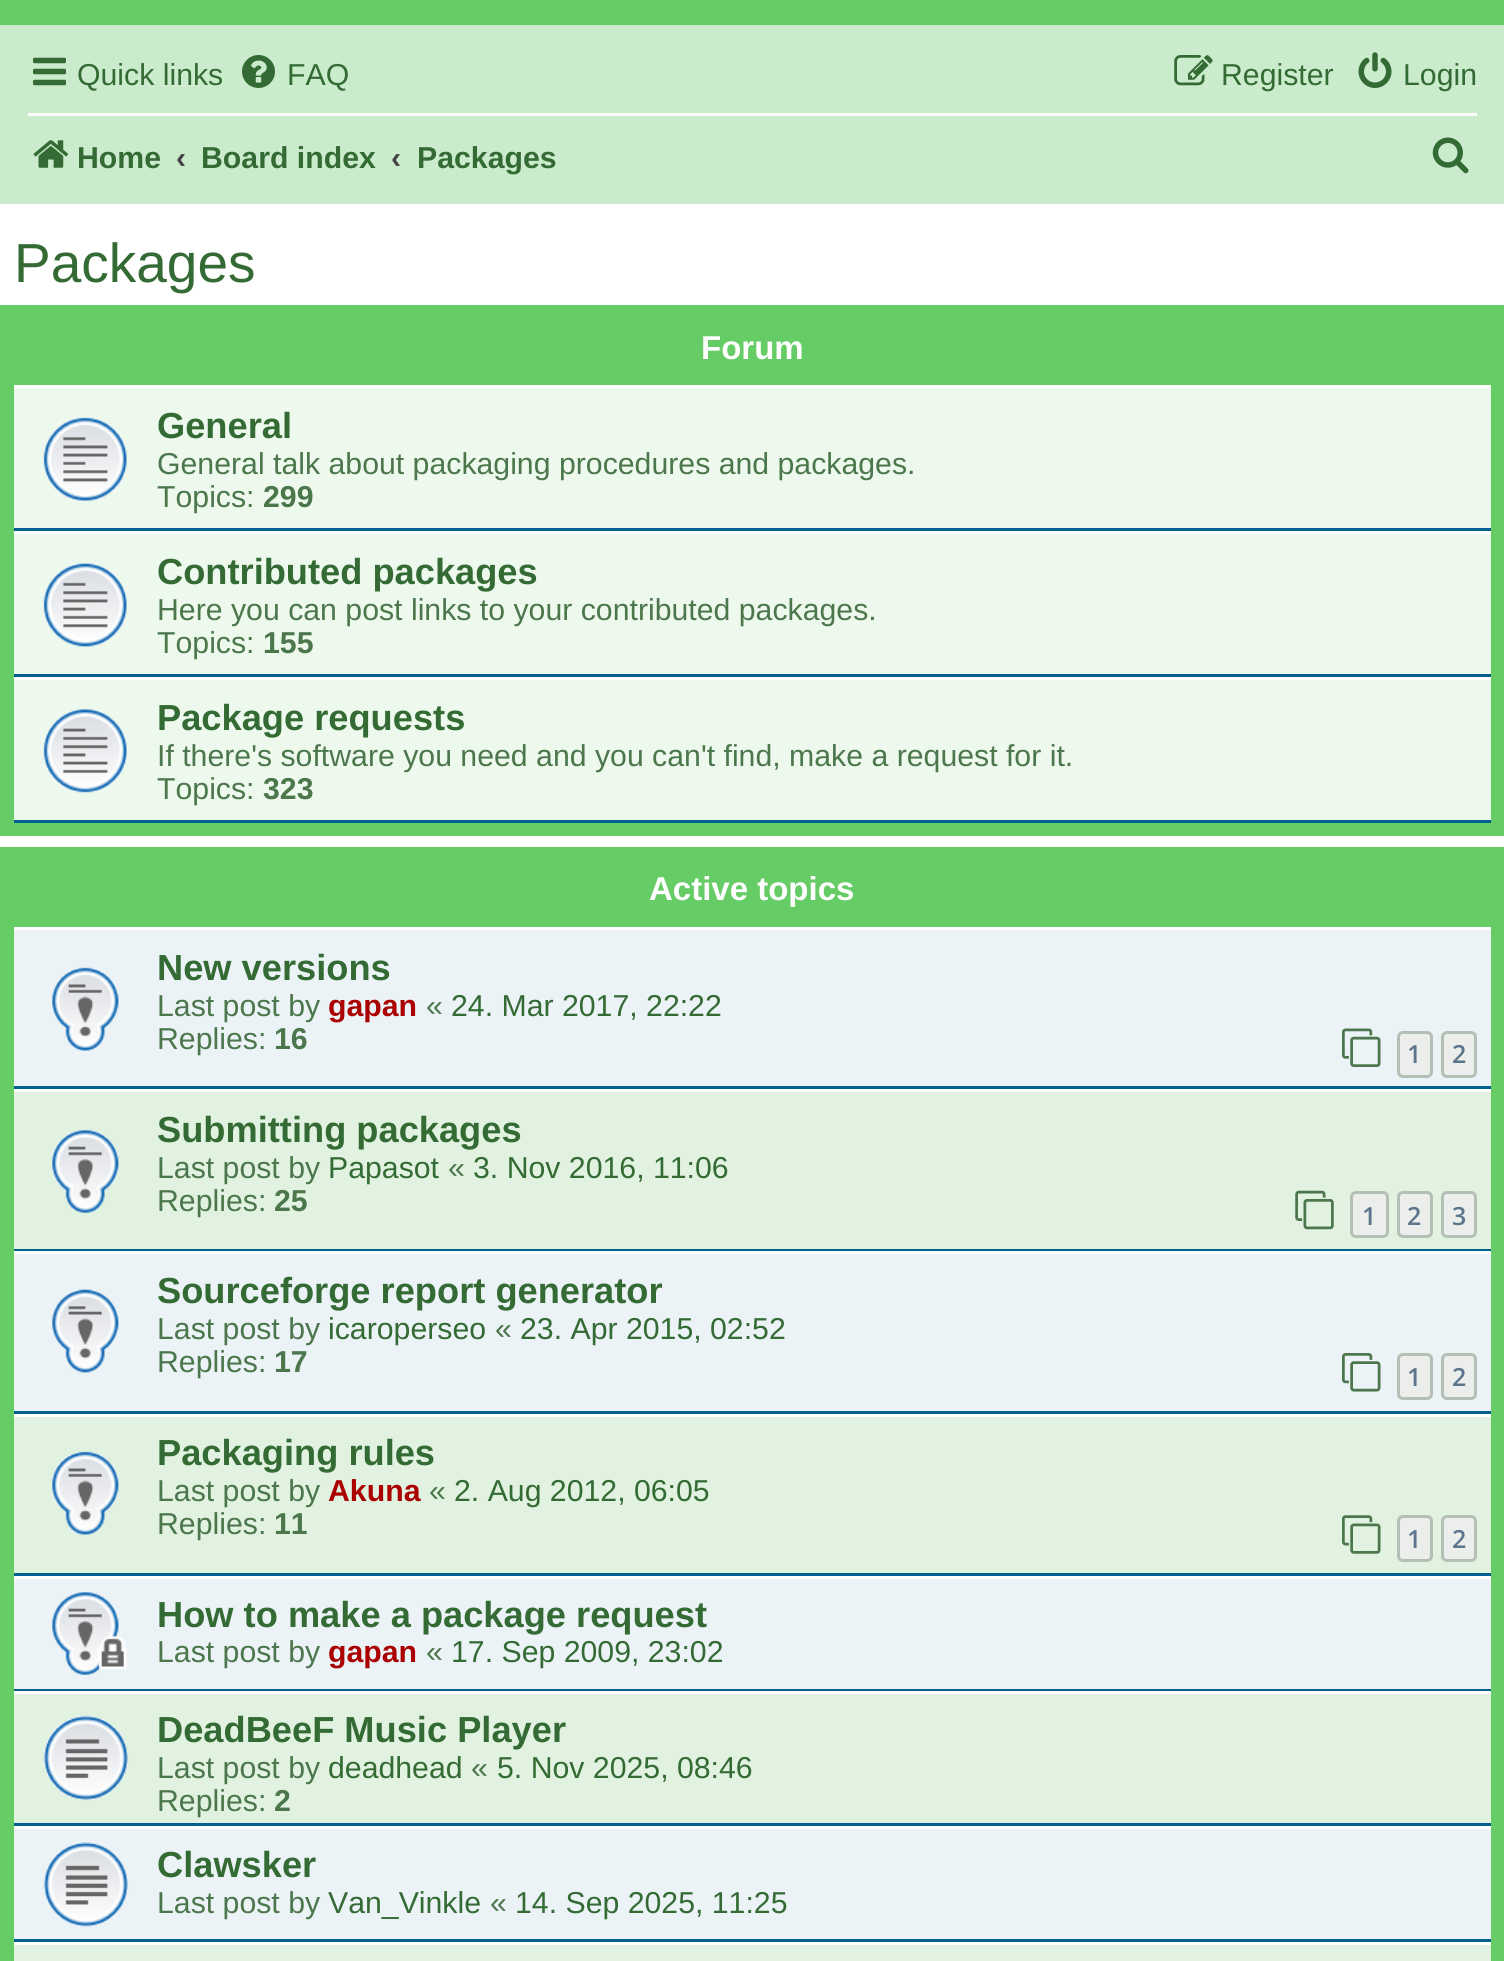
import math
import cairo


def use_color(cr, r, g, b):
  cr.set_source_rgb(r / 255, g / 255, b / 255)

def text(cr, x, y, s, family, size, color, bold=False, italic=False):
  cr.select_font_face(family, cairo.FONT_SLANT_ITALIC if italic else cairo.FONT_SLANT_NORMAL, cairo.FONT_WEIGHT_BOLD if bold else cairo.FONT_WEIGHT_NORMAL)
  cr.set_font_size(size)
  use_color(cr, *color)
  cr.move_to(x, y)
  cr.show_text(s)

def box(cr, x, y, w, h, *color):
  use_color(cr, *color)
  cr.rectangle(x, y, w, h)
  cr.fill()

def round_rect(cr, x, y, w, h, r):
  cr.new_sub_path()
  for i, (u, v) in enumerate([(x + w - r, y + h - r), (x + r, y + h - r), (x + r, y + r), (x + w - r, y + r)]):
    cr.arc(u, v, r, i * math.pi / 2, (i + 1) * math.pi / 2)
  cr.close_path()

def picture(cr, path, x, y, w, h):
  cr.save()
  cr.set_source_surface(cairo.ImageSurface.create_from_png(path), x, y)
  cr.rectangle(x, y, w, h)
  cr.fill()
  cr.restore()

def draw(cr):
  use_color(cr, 255, 255, 255)
  cr.paint()
  box(cr, 0, 0, 1504, 25, 102, 204, 102)
  box(cr, 0, 25, 1504, 179, 202, 235, 204)
  picture(cr, "img_01.png", 33, 57, 33, 29)
  picture(cr, "img_02.png", 242, 55, 33, 33)
  picture(cr, "img_03.png", 1174, 55, 39, 31)
  picture(cr, "img_04.png", 1358, 52, 34, 36)
  box(cr, 28, 113, 1449, 3, 255, 255, 255)
  picture(cr, "img_05.png", 33, 140, 36, 28)
  picture(cr, "img_06.png", 1432, 137, 37, 37)
  box(cr, 0, 305, 1504, 531, 102, 204, 102)
  box(cr, 14, 388, 1477, 432, 238, 249, 238)
  box(cr, 14, 385, 1477, 3, 255, 255, 255)
  box(cr, 14, 528, 1477, 3, 0, 96, 143)
  picture(cr, "img_07.png", 43, 417, 84, 84)
  box(cr, 14, 531, 1477, 3, 255, 255, 255)
  box(cr, 14, 674, 1477, 3, 0, 96, 143)
  picture(cr, "img_08.png", 43, 563, 84, 84)
  box(cr, 14, 677, 1477, 3, 255, 255, 255)
  box(cr, 14, 820, 1477, 3, 0, 96, 143)
  picture(cr, "img_09.png", 43, 709, 84, 84)
  box(cr, 0, 847, 1504, 1114, 102, 204, 102)
  box(cr, 14, 930, 1477, 156, 236, 243, 247)
  box(cr, 14, 927, 1477, 3, 255, 255, 255)
  box(cr, 14, 1086, 1477, 3, 0, 96, 143)
  picture(cr, "img_10.png", 52, 967, 67, 84)
  picture(cr, "img_11.png", 1342, 1028, 39, 39)
  use_color(cr, 236, 238, 236)
  round_rect(cr, 1398.5, 1032.5, 33, 44, 4.5)
  cr.fill_preserve()
  use_color(cr, 180, 192, 182)
  cr.set_line_width(3)
  cr.stroke()
  use_color(cr, 236, 238, 236)
  round_rect(cr, 1442.5, 1032.5, 33, 44, 4.5)
  cr.fill_preserve()
  use_color(cr, 180, 192, 182)
  cr.stroke()
  box(cr, 14, 1092, 1477, 157, 225, 242, 225)
  box(cr, 14, 1089, 1477, 3, 255, 255, 255)
  box(cr, 14, 1249, 1477, 2, 0, 96, 143)
  picture(cr, "img_12.png", 52, 1130, 67, 83)
  picture(cr, "img_13.png", 1295, 1190, 39, 40)
  use_color(cr, 236, 238, 236)
  round_rect(cr, 1351.5, 1192.5, 36, 44, 4.5)
  cr.fill_preserve()
  use_color(cr, 180, 192, 182)
  cr.stroke()
  use_color(cr, 236, 238, 236)
  round_rect(cr, 1398.5, 1192.5, 33, 44, 4.5)
  cr.fill_preserve()
  use_color(cr, 180, 192, 182)
  cr.stroke()
  use_color(cr, 236, 238, 236)
  round_rect(cr, 1442.5, 1192.5, 33, 44, 4.5)
  cr.fill_preserve()
  use_color(cr, 180, 192, 182)
  cr.stroke()
  box(cr, 14, 1254, 1477, 157, 236, 243, 247)
  box(cr, 14, 1251, 1477, 3, 255, 255, 255)
  box(cr, 14, 1411, 1477, 3, 0, 96, 143)
  picture(cr, "img_14.png", 52, 1289, 67, 84)
  picture(cr, "img_15.png", 1342, 1353, 39, 39)
  use_color(cr, 236, 238, 236)
  round_rect(cr, 1398.5, 1354.5, 33, 44, 4.5)
  cr.fill_preserve()
  use_color(cr, 180, 192, 182)
  cr.stroke()
  use_color(cr, 236, 238, 236)
  round_rect(cr, 1442.5, 1354.5, 33, 44, 4.5)
  cr.fill_preserve()
  use_color(cr, 180, 192, 182)
  cr.stroke()
  box(cr, 14, 1417, 1477, 156, 225, 242, 225)
  box(cr, 14, 1414, 1477, 3, 255, 255, 255)
  box(cr, 14, 1573, 1477, 3, 0, 96, 143)
  picture(cr, "img_16.png", 52, 1451, 67, 84)
  picture(cr, "img_17.png", 1342, 1515, 39, 39)
  use_color(cr, 236, 238, 236)
  round_rect(cr, 1398.5, 1516.5, 33, 44, 4.5)
  cr.fill_preserve()
  use_color(cr, 180, 192, 182)
  cr.stroke()
  use_color(cr, 236, 238, 236)
  round_rect(cr, 1442.5, 1516.5, 33, 44, 4.5)
  cr.fill_preserve()
  use_color(cr, 180, 192, 182)
  cr.stroke()
  box(cr, 14, 1579, 1477, 110, 236, 243, 247)
  box(cr, 14, 1576, 1477, 3, 255, 255, 255)
  box(cr, 14, 1689, 1477, 2, 0, 96, 143)
  picture(cr, "img_18.png", 52, 1592, 75, 83)
  box(cr, 14, 1694, 1477, 129, 225, 242, 225)
  box(cr, 14, 1691, 1477, 3, 255, 255, 255)
  box(cr, 14, 1823, 1477, 3, 0, 96, 143)
  picture(cr, "img_19.png", 43, 1715, 86, 86)
  box(cr, 14, 1829, 1477, 110, 236, 243, 247)
  box(cr, 14, 1826, 1477, 3, 255, 255, 255)
  box(cr, 14, 1939, 1477, 3, 0, 96, 143)
  picture(cr, "img_20.png", 43, 1842, 86, 85)
  box(cr, 14, 1945, 1477, 16, 225, 242, 225)
  box(cr, 14, 1942, 1477, 3, 255, 255, 255)
  text(cr, 77, 85, "Quick links", "Liberation Sans", 30.25, (52, 107, 52))
  text(cr, 287, 85, "FAQ", "Liberation Sans", 30.25, (52, 107, 52))
  text(cr, 1221, 85, "Register", "Liberation Sans", 30.25, (52, 107, 52))
  text(cr, 1403, 85, "Login", "Liberation Sans", 30.25, (52, 107, 52))
  text(cr, 77, 168, "Home", "Liberation Sans", 30.25, (52, 107, 52), bold=True)
  text(cr, 176, 168, "‹", "Liberation Sans", 30.25, (68, 68, 68), bold=True)
  text(cr, 201, 168, "Board index", "Liberation Sans", 30.25, (52, 107, 52), bold=True)
  text(cr, 391, 168, "‹", "Liberation Sans", 30.25, (68, 68, 68), bold=True)
  text(cr, 417, 168, "Packages", "Liberation Sans", 30.25, (52, 107, 52), bold=True)
  text(cr, 14, 282, "Packages", "Liberation Sans", 55, (52, 107, 52))
  text(cr, 701, 359, "Forum", "Liberation Sans", 33, (255, 255, 255), bold=True)
  text(cr, 157, 438, "General", "Liberation Sans", 36.25, (52, 107, 52), bold=True)
  text(cr, 157, 474, "General talk about packaging procedures and packages.", "Liberation Sans", 30.25, (76, 119, 76))
  text(cr, 157, 507, "Topics:", "Liberation Sans", 30.25, (76, 119, 76))
  text(cr, 263, 507, "299", "Liberation Sans", 30.25, (76, 119, 76), bold=True)
  text(cr, 157, 584, "Contributed packages", "Liberation Sans", 36.25, (52, 107, 52), bold=True)
  text(cr, 157, 620, "Here you can post links to your contributed packages.", "Liberation Sans", 30.25, (76, 119, 76))
  text(cr, 157, 653, "Topics:", "Liberation Sans", 30.25, (76, 119, 76))
  text(cr, 263, 653, "155", "Liberation Sans", 30.25, (76, 119, 76), bold=True)
  text(cr, 157, 730, "Package requests", "Liberation Sans", 36.25, (52, 107, 52), bold=True)
  text(cr, 157, 766, "If there's software you need and you can't find, make a request for it.", "Liberation Sans", 30.25, (76, 119, 76))
  text(cr, 157, 799, "Topics:", "Liberation Sans", 30.25, (76, 119, 76))
  text(cr, 263, 799, "323", "Liberation Sans", 30.25, (76, 119, 76), bold=True)
  text(cr, 649, 900, "Active topics", "Liberation Sans", 33, (255, 255, 255), bold=True)
  text(cr, 157, 980, "New versions", "Liberation Sans", 36.25, (52, 107, 52), bold=True)
  text(cr, 157, 1016, "Last post by", "Liberation Sans", 30.25, (76, 119, 76))
  text(cr, 328, 1016, "gapan", "Liberation Sans", 30.25, (170, 0, 0), bold=True)
  text(cr, 426, 1016, "«", "Liberation Sans", 30.25, (76, 119, 76))
  text(cr, 451, 1016, "24. Mar 2017, 22:22", "Liberation Sans", 30.25, (52, 107, 52))
  text(cr, 157, 1049, "Replies:", "Liberation Sans", 30.25, (76, 119, 76))
  text(cr, 274, 1049, "16", "Liberation Sans", 30.25, (76, 119, 76), bold=True)
  text(cr, 1407, 1063, "1", "Open Sans SemiBold", 25, (92, 117, 140))
  text(cr, 1452, 1063, "2", "Open Sans SemiBold", 25, (92, 117, 140))
  text(cr, 157, 1142, "Submitting packages", "Liberation Sans", 36.25, (52, 107, 52), bold=True)
  text(cr, 157, 1178, "Last post by", "Liberation Sans", 30.25, (76, 119, 76))
  text(cr, 328, 1178, "Papasot", "Liberation Sans", 30.25, (52, 107, 52))
  text(cr, 448, 1178, "«", "Liberation Sans", 30.25, (76, 119, 76))
  text(cr, 473, 1178, "3. Nov 2016, 11:06", "Liberation Sans", 30.25, (52, 107, 52))
  text(cr, 157, 1211, "Replies:", "Liberation Sans", 30.25, (76, 119, 76))
  text(cr, 274, 1211, "25", "Liberation Sans", 30.25, (76, 119, 76), bold=True)
  text(cr, 1362, 1225, "1", "Open Sans SemiBold", 25, (92, 117, 140))
  text(cr, 1407, 1225, "2", "Open Sans SemiBold", 25, (92, 117, 140))
  text(cr, 1452, 1225, "3", "Open Sans SemiBold", 25, (92, 117, 140))
  text(cr, 157, 1303, "Sourceforge report generator", "Liberation Sans", 36.25, (52, 107, 52), bold=True)
  text(cr, 157, 1339, "Last post by", "Liberation Sans", 30.25, (76, 119, 76))
  text(cr, 328, 1339, "icaroperseo", "Liberation Sans", 30.25, (52, 107, 52))
  text(cr, 495, 1339, "«", "Liberation Sans", 30.25, (76, 119, 76))
  text(cr, 520, 1339, "23. Apr 2015, 02:52", "Liberation Sans", 30.25, (52, 107, 52))
  text(cr, 157, 1372, "Replies:", "Liberation Sans", 30.25, (76, 119, 76))
  text(cr, 274, 1372, "17", "Liberation Sans", 30.25, (76, 119, 76), bold=True)
  text(cr, 1407, 1386, "1", "Open Sans SemiBold", 25, (92, 117, 140))
  text(cr, 1452, 1386, "2", "Open Sans SemiBold", 25, (92, 117, 140))
  text(cr, 157, 1465, "Packaging rules", "Liberation Sans", 36.25, (52, 107, 52), bold=True)
  text(cr, 157, 1501, "Last post by", "Liberation Sans", 30.25, (76, 119, 76))
  text(cr, 328, 1501, "Akuna", "Liberation Sans", 30.25, (170, 0, 0), bold=True)
  text(cr, 429, 1501, "«", "Liberation Sans", 30.25, (76, 119, 76))
  text(cr, 454, 1501, "2. Aug 2012, 06:05", "Liberation Sans", 30.25, (52, 107, 52))
  text(cr, 157, 1534, "Replies:", "Liberation Sans", 30.25, (76, 119, 76))
  text(cr, 274, 1534, "11", "Liberation Sans", 30.25, (76, 119, 76), bold=True)
  text(cr, 1407, 1548, "1", "Open Sans SemiBold", 25, (92, 117, 140))
  text(cr, 1452, 1548, "2", "Open Sans SemiBold", 25, (92, 117, 140))
  text(cr, 157, 1627, "How to make a package request", "Liberation Sans", 36.25, (52, 107, 52), bold=True)
  text(cr, 157, 1662, "Last post by", "Liberation Sans", 30.25, (76, 119, 76))
  text(cr, 328, 1662, "gapan", "Liberation Sans", 30.25, (170, 0, 0), bold=True)
  text(cr, 426, 1662, "«", "Liberation Sans", 30.25, (76, 119, 76))
  text(cr, 451, 1662, "17. Sep 2009, 23:02", "Liberation Sans", 30.25, (52, 107, 52))
  text(cr, 157, 1742, "DeadBeeF Music Player", "Liberation Sans", 36.25, (52, 107, 52), bold=True)
  text(cr, 157, 1778, "Last post by", "Liberation Sans", 30.25, (76, 119, 76))
  text(cr, 328, 1778, "deadhead", "Liberation Sans", 30.25, (52, 107, 52))
  text(cr, 471, 1778, "«", "Liberation Sans", 30.25, (76, 119, 76))
  text(cr, 497, 1778, "5. Nov 2025, 08:46", "Liberation Sans", 30.25, (52, 107, 52))
  text(cr, 157, 1811, "Replies:", "Liberation Sans", 30.25, (76, 119, 76))
  text(cr, 274, 1811, "2", "Liberation Sans", 30.25, (76, 119, 76), bold=True)
  text(cr, 157, 1877, "Clawsker", "Liberation Sans", 36.25, (52, 107, 52), bold=True)
  text(cr, 157, 1913, "Last post by", "Liberation Sans", 30.25, (76, 119, 76))
  text(cr, 328, 1913, "Van_Vinkle", "Liberation Sans", 30.25, (52, 107, 52))
  text(cr, 490, 1913, "«", "Liberation Sans", 30.25, (76, 119, 76))
  text(cr, 515, 1913, "14. Sep 2025, 11:25", "Liberation Sans", 30.25, (52, 107, 52))


surface = cairo.ImageSurface(cairo.FORMAT_RGB24, 1504, 1961)
cr = cairo.Context(surface)
options = cairo.FontOptions()
options.set_hint_metrics(cairo.HINT_METRICS_OFF)
options.set_hint_style(cairo.HINT_STYLE_NONE)
cr.set_font_options(options)
cr.set_miter_limit(4)
draw(cr)
surface.write_to_png("out.png")
